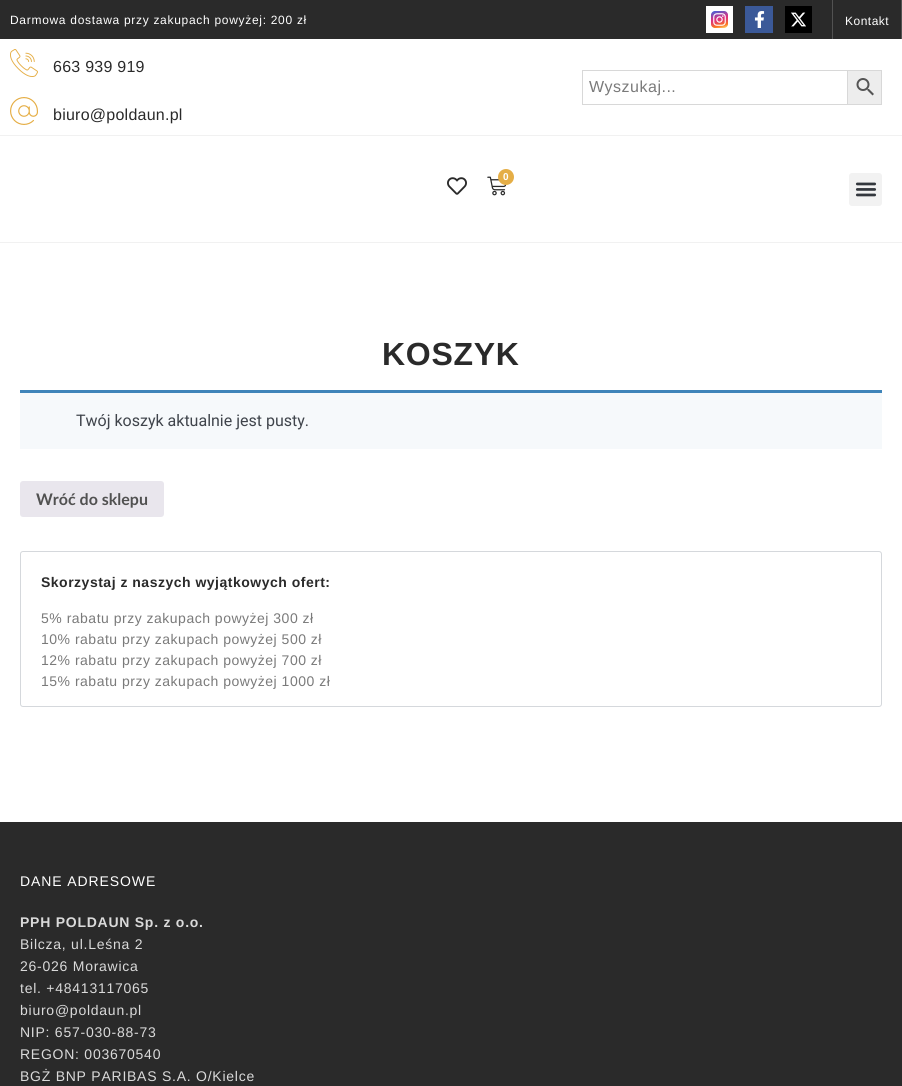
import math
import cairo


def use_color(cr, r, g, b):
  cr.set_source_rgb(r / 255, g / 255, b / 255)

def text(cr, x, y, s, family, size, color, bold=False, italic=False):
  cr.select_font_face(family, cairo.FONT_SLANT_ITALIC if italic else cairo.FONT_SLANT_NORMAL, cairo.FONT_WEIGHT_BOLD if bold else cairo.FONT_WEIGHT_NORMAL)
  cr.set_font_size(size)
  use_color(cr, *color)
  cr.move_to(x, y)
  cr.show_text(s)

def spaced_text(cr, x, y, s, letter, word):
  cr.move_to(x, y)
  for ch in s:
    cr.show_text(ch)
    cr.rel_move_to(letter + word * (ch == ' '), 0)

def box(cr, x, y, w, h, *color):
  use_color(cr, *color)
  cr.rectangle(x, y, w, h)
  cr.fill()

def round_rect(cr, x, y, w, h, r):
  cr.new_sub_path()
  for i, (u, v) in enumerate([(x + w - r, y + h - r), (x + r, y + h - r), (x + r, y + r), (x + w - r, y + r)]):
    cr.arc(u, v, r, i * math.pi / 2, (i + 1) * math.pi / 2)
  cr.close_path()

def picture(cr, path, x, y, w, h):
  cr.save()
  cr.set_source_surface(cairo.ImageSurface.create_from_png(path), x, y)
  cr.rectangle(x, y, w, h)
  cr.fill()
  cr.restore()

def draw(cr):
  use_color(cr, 255, 255, 255)
  cr.paint()
  box(cr, 0, 0, 901, 39, 42, 42, 42)
  box(cr, 706, 6, 27, 27, 255, 255, 255)
  picture(cr, "img_01.png", 711, 11, 17, 17)
  box(cr, 745, 6, 28, 27, 59, 89, 152)
  picture(cr, "img_02.png", 754, 11, 11, 17)
  box(cr, 785, 6, 27, 27, 0, 0, 0)
  picture(cr, "img_03.png", 791, 12, 15, 15)
  box(cr, 901, 0, 1, 39, 82, 82, 82)
  box(cr, 832, 0, 1, 39, 82, 82, 82)
  picture(cr, "img_04.png", 10, 49, 28, 28)
  picture(cr, "img_05.png", 10, 97, 28, 28)
  use_color(cr, 237, 237, 237)
  cr.rectangle(847.5, 70.5, 34, 34)
  cr.fill_preserve()
  use_color(cr, 216, 216, 216)
  cr.set_line_width(1)
  cr.stroke()
  cr.rectangle(582.5, 70.5, 265, 34)
  cr.stroke()
  picture(cr, "img_06.png", 856, 78, 18, 18)
  box(cr, 0, 135, 902, 1, 241, 241, 241)
  box(cr, 0, 242, 902, 1, 241, 241, 241)
  picture(cr, "img_07.png", 447, 177, 20, 18)
  picture(cr, "img_08.png", 487, 176, 20, 20)
  use_color(cr, 229, 174, 70)
  cr.arc(506, 177, 8, 0, 2 * math.pi)
  cr.fill()
  use_color(cr, 242, 242, 242)
  round_rect(cr, 849, 173, 33, 33, 3)
  cr.fill()
  picture(cr, "img_09.png", 855, 182, 22, 15)
  box(cr, 20, 393, 862, 56, 246, 249, 251)
  box(cr, 20, 390, 862, 3, 63, 132, 185)
  use_color(cr, 233, 230, 237)
  round_rect(cr, 20, 481, 144, 36, 3)
  cr.fill()
  round_rect(cr, 20.5, 551.5, 861, 155, 2.5)
  use_color(cr, 213, 216, 220)
  cr.stroke()
  box(cr, 0, 822, 902, 264, 42, 42, 42)
  cr.select_font_face("Liberation Sans")
  cr.set_font_size(12)
  use_color(cr, 255, 255, 255)
  spaced_text(cr, 10, 24, "Darmowa dostawa przy zakupach powyżej: 200 zł", 0.7, 0)
  spaced_text(cr, 845, 25, "Kontakt", 0.5, 0)
  cr.set_font_size(16)
  use_color(cr, 42, 42, 42)
  spaced_text(cr, 53, 72, "663 939 919", 0.25, 0)
  spaced_text(cr, 53, 120, "biuro@poldaun.pl", 0.25, 0)
  use_color(cr, 122, 122, 122)
  spaced_text(cr, 589, 92, "Wyszukaj...", 0.5, 0)
  cr.select_font_face("Liberation Sans", cairo.FONT_SLANT_NORMAL, cairo.FONT_WEIGHT_BOLD)
  cr.set_font_size(10)
  use_color(cr, 255, 255, 255)
  spaced_text(cr, 503, 180, "0", 0.7, 0)
  cr.set_font_size(32)
  use_color(cr, 42, 42, 42)
  spaced_text(cr, 382, 365, "KOSZYK", 0.7, 0)
  text(cr, 76, 426, "Twój koszyk aktualnie jest pusty.", "Roboto", 16, (63, 68, 75))
  text(cr, 36, 505, "Wróć do sklepu", "Lato", 16, (81, 81, 81), bold=True)
  cr.select_font_face("Liberation Sans", cairo.FONT_SLANT_NORMAL, cairo.FONT_WEIGHT_BOLD)
  cr.set_font_size(14)
  use_color(cr, 42, 42, 42)
  spaced_text(cr, 41, 587, "Skorzystaj z naszych wyjątkowych ofert:", 0.5, 0)
  cr.select_font_face("Liberation Sans")
  use_color(cr, 122, 122, 122)
  spaced_text(cr, 41, 623, "5% rabatu przy zakupach powyżej 300 zł", 0.5, 0)
  spaced_text(cr, 41, 644, "10% rabatu przy zakupach powyżej 500 zł", 0.5, 0)
  spaced_text(cr, 41, 665, "12% rabatu przy zakupach powyżej 700 zł", 0.5, 0)
  spaced_text(cr, 41, 686, "15% rabatu przy zakupach powyżej 1000 zł", 0.5, 0)
  use_color(cr, 255, 255, 255)
  spaced_text(cr, 20, 886, "DANE ADRESOWE", 0.9, 0)
  cr.select_font_face("Liberation Sans", cairo.FONT_SLANT_NORMAL, cairo.FONT_WEIGHT_BOLD)
  use_color(cr, 218, 218, 218)
  spaced_text(cr, 20, 927, "PPH POLDAUN Sp. z o.o.", 0.75, 0)
  cr.select_font_face("Liberation Sans")
  spaced_text(cr, 20, 949, "Bilcza, ul.Leśna 2", 0.75, 0)
  spaced_text(cr, 20, 971, "26-026 Morawica", 0.75, 0)
  spaced_text(cr, 20, 993, "tel. +48413117065", 0.75, 0)
  spaced_text(cr, 20, 1015, "biuro@poldaun.pl", 0.75, 0)
  spaced_text(cr, 20, 1037, "NIP: 657-030-88-73", 0.75, 0)
  spaced_text(cr, 20, 1059, "REGON: 003670540", 0.75, 0)
  spaced_text(cr, 20, 1081, "BGŻ BNP PARIBAS S.A. O/Kielce", 0.75, 0)


surface = cairo.ImageSurface(cairo.FORMAT_RGB24, 902, 1086)
cr = cairo.Context(surface)
options = cairo.FontOptions()
options.set_hint_metrics(cairo.HINT_METRICS_OFF)
options.set_hint_style(cairo.HINT_STYLE_NONE)
cr.set_font_options(options)
cr.set_miter_limit(4)
draw(cr)
surface.write_to_png("out.png")
